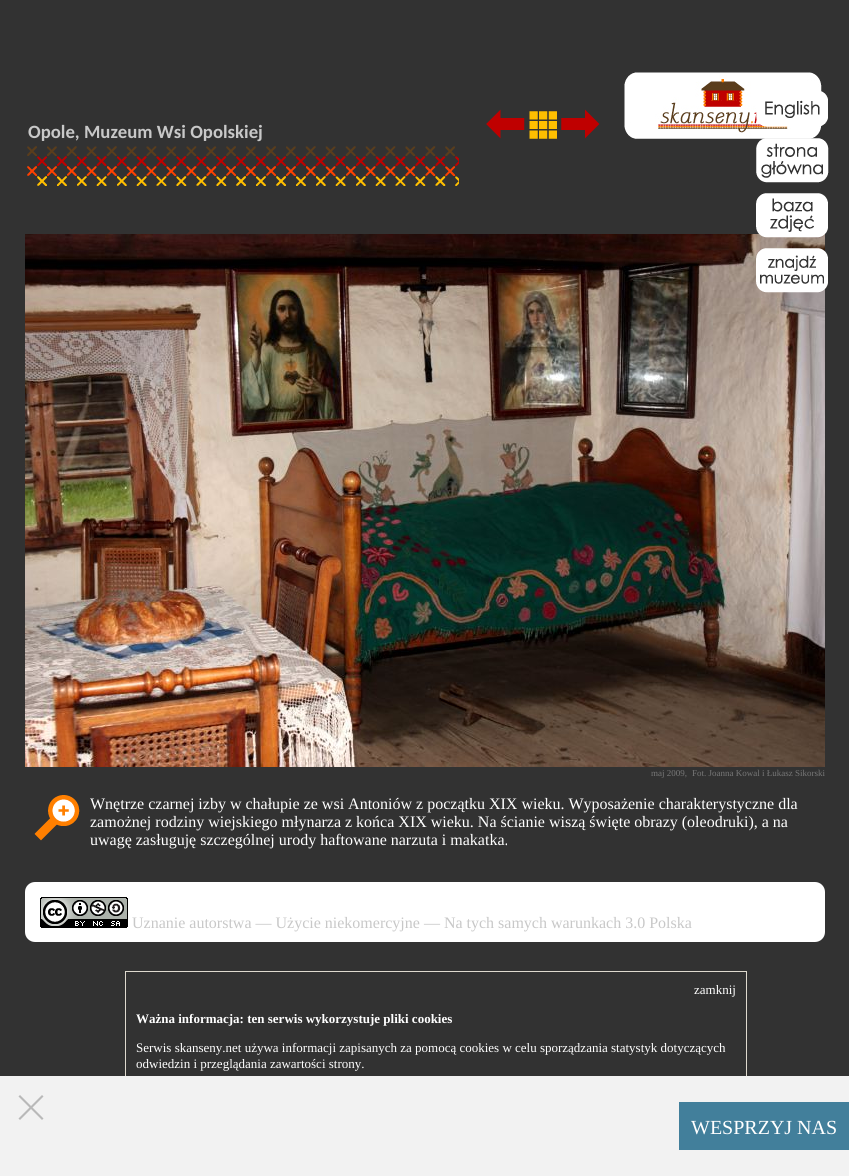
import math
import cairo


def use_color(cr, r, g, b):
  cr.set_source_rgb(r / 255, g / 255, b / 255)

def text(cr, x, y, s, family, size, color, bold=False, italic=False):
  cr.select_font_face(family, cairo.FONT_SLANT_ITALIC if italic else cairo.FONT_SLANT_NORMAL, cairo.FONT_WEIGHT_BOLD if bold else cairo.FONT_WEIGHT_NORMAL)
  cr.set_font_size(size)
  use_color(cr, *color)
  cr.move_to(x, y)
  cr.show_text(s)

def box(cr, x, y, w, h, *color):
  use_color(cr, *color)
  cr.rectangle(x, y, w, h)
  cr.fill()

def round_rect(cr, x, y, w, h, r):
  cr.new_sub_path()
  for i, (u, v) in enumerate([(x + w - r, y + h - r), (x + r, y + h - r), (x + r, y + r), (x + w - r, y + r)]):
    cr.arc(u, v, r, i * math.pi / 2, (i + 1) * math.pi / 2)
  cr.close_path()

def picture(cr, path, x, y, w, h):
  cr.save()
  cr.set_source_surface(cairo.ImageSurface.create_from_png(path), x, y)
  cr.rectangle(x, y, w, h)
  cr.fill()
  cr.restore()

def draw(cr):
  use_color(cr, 50, 50, 50)
  cr.paint()
  picture(cr, "img_01.png", 486, 109, 39, 30)
  picture(cr, "img_02.png", 529, 111, 28, 28)
  picture(cr, "img_03.png", 561, 109, 39, 30)
  picture(cr, "img_04.png", 624, 72, 198, 67)
  picture(cr, "img_05.png", 27, 146, 432, 40)
  picture(cr, "img_06.png", 756, 91, 72, 36)
  picture(cr, "img_07.png", 756, 138, 73, 45)
  picture(cr, "img_10.png", 25, 234, 800, 533)
  picture(cr, "img_08.png", 756, 193, 72, 45)
  picture(cr, "img_09.png", 756, 248, 72, 45)
  picture(cr, "img_11.png", 34, 795, 46, 46)
  use_color(cr, 255, 255, 255)
  round_rect(cr, 25, 882, 800, 60, 10)
  cr.fill()
  picture(cr, "img_12.png", 40, 897, 88, 31)
  cr.rectangle(125.5, 971.5, 621, 124)
  use_color(cr, 222, 217, 206)
  cr.set_line_width(1)
  cr.stroke()
  box(cr, 0, 1076, 849, 100, 242, 242, 242)
  use_color(cr, 185, 185, 185)
  cr.new_path()
  cr.move_to(42, 1095)
  cr.line_to(43.5, 1096.5)
  cr.line_to(20, 1120)
  cr.line_to(18.5, 1118.5)
  cr.close_path()
  cr.fill()
  cr.new_path()
  cr.move_to(18.5, 1096.5)
  cr.line_to(20, 1095)
  cr.line_to(43.5, 1118.5)
  cr.line_to(42, 1120)
  cr.close_path()
  cr.fill()
  box(cr, 679, 1102, 170, 48, 66, 127, 155)
  text(cr, 28, 138, "Opole, Muzeum Wsi Opolskiej", "Carlito", 18.75, (200, 200, 200), bold=True)
  text(cr, 651, 776, "maj 2009,", "Liberation Serif", 9, (119, 119, 119))
  text(cr, 692, 776, "Fot. Joanna Kowal i Łukasz Sikorski", "Liberation Serif", 9, (119, 119, 119))
  text(cr, 90, 809, "Wnętrze czarnej izby w chałupie ze wsi Antoniów z początku XIX wieku. Wyposażenie charakterystyczne dla", "Liberation Serif", 16, (255, 255, 255))
  text(cr, 90, 827, "zamożnej rodziny wiejskiego młynarza z końca XIX wieku. Na ścianie wiszą święte obrazy (oleodruki), a na", "Liberation Serif", 16, (255, 255, 255))
  text(cr, 90, 845, "uwagę zasługuję szczególnej urody haftowane narzuta i makatka.", "Liberation Serif", 16, (255, 255, 255))
  text(cr, 132, 928, "Uznanie autorstwa — Użycie niekomercyjne — Na tych samych warunkach 3.0 Polska", "Liberation Serif", 16, (200, 200, 200))
  text(cr, 694, 994, "zamknij", "Liberation Serif", 13, (255, 255, 255))
  text(cr, 136, 1023, "Ważna informacja: ten serwis wykorzystuje pliki cookies", "Liberation Serif", 13, (255, 255, 255), bold=True)
  text(cr, 136, 1052, "Serwis skanseny.net używa informacji zapisanych za pomocą cookies w celu sporządzania statystyk dotyczących", "Liberation Serif", 13, (255, 255, 255))
  text(cr, 136, 1068, "odwiedzin i przeglądania zawartości strony.", "Liberation Serif", 13, (255, 255, 255))
  text(cr, 691, 1134, "WESPRZYJ NAS", "Liberation Serif", 20, (255, 255, 255))


surface = cairo.ImageSurface(cairo.FORMAT_RGB24, 849, 1176)
cr = cairo.Context(surface)
options = cairo.FontOptions()
options.set_hint_metrics(cairo.HINT_METRICS_OFF)
options.set_hint_style(cairo.HINT_STYLE_NONE)
cr.set_font_options(options)
cr.set_miter_limit(4)
draw(cr)
surface.write_to_png("out.png")
